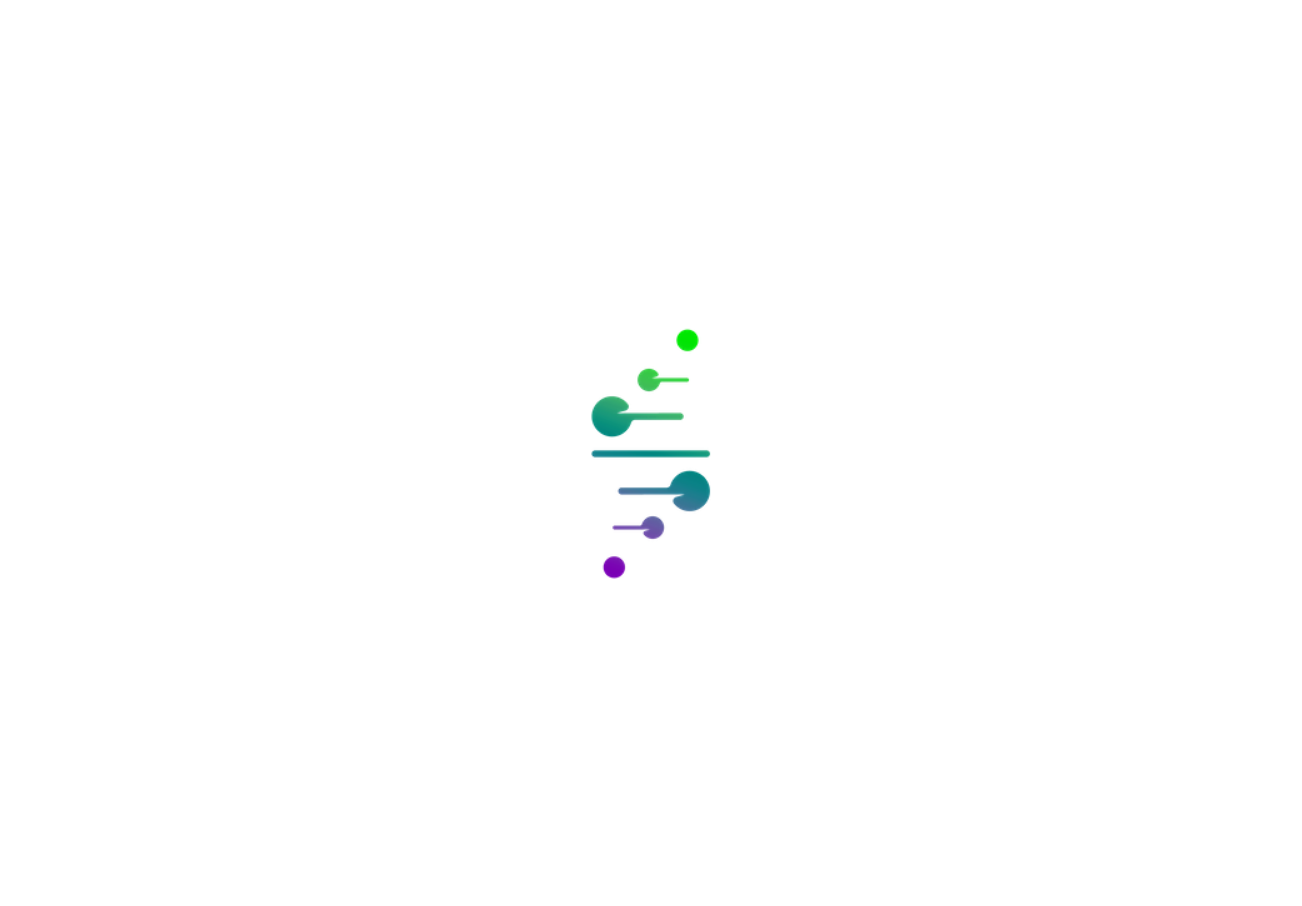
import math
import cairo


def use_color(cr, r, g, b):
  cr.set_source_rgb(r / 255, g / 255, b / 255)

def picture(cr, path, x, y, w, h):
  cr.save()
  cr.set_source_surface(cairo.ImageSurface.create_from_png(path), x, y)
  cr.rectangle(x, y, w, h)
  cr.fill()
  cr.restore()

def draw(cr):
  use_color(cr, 255, 255, 255)
  cr.paint()
  picture(cr, "img_01.png", 591, 328, 120, 251)


surface = cairo.ImageSurface(cairo.FORMAT_RGB24, 1302, 906)
cr = cairo.Context(surface)
options = cairo.FontOptions()
options.set_hint_metrics(cairo.HINT_METRICS_OFF)
options.set_hint_style(cairo.HINT_STYLE_NONE)
cr.set_font_options(options)
cr.set_miter_limit(4)
draw(cr)
surface.write_to_png("out.png")
